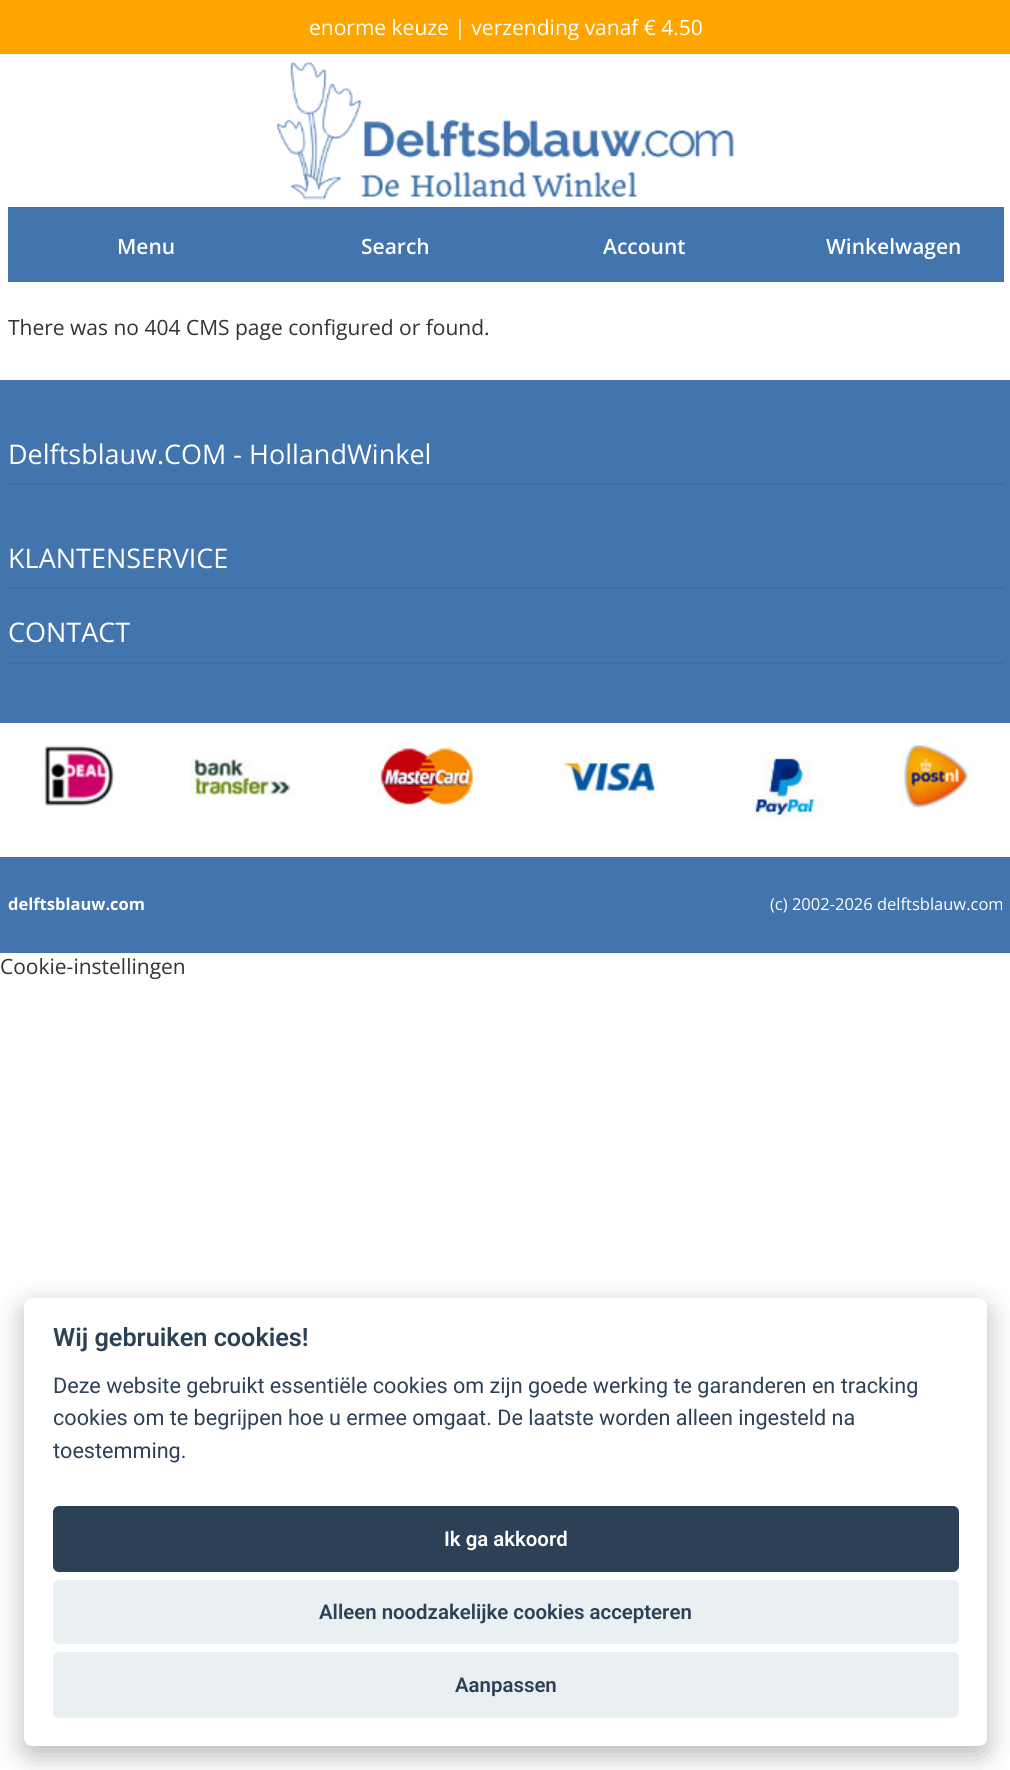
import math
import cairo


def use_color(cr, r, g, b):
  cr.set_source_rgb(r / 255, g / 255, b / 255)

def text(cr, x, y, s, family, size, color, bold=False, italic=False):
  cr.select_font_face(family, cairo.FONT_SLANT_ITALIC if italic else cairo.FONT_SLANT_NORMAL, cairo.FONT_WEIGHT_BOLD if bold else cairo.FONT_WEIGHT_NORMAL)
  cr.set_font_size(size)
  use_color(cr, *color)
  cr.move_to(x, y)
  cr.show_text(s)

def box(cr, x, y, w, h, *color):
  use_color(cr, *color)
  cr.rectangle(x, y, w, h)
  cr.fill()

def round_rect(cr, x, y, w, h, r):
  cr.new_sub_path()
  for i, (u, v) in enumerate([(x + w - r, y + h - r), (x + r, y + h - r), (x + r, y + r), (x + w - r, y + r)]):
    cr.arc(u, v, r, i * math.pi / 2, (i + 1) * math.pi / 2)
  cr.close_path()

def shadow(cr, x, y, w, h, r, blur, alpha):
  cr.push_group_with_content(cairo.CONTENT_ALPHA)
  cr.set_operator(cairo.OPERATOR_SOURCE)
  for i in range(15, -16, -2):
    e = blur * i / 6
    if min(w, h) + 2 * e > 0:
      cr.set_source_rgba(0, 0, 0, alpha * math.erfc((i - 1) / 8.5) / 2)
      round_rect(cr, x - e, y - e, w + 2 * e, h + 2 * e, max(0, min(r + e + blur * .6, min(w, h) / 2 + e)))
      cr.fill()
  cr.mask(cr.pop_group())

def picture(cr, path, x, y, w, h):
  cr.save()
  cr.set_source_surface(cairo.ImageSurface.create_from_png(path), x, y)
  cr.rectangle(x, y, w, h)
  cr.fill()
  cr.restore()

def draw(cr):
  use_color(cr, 255, 255, 255)
  cr.paint()
  box(cr, 0, 0, 1010, 54, 255, 165, 0)
  picture(cr, "img_01.png", 276, 61, 458, 139)
  box(cr, 8, 207, 996, 75, 66, 116, 173)
  box(cr, 0, 380, 1010, 573, 66, 116, 173)
  box(cr, 8, 483, 996, 2, 63, 110, 164)
  box(cr, 8, 587, 996, 2, 63, 110, 164)
  box(cr, 8, 662, 996, 2, 63, 110, 164)
  box(cr, 0, 723, 1010, 134, 255, 255, 255)
  picture(cr, "img_02.png", 44, 745, 71, 62)
  picture(cr, "img_03.png", 190, 758, 107, 38)
  picture(cr, "img_04.png", 377, 747, 96, 60)
  picture(cr, "img_05.png", 561, 759, 96, 37)
  picture(cr, "img_06.png", 751, 752, 73, 67)
  picture(cr, "img_07.png", 901, 744, 73, 64)
  use_color(cr, 2, 2, 3)
  shadow(cr, 24, 1307, 963, 448, 8, 14, 0.28)
  use_color(cr, 255, 255, 255)
  round_rect(cr, 24, 1298, 963, 448, 8)
  cr.fill()
  use_color(cr, 45, 65, 86)
  round_rect(cr, 53, 1506, 906, 66, 6)
  cr.fill()
  use_color(cr, 234, 239, 242)
  round_rect(cr, 53, 1580, 906, 64, 6)
  cr.fill()
  round_rect(cr, 53, 1652, 906, 66, 6)
  cr.fill()
  text(cr, 309, 35, "enorme keuze | verzending vanaf € 4.50", "Open Sans", 21, (255, 255, 255))
  text(cr, 117, 254, "Menu", "Open Sans SemiBold", 21, (255, 255, 255))
  text(cr, 361, 254, "Search", "Open Sans SemiBold", 21, (255, 255, 255))
  text(cr, 603, 254, "Account", "Open Sans SemiBold", 21, (255, 255, 255))
  text(cr, 826, 254, "Winkelwagen", "Open Sans SemiBold", 21, (255, 255, 255))
  text(cr, 8, 335, "There was no 404 CMS page configured or found.", "Open Sans", 21, (51, 51, 51))
  text(cr, 8, 464, "Delftsblauw.COM - HollandWinkel", "Open Sans", 27, (255, 255, 255))
  text(cr, 8, 568, "KLANTENSERVICE", "Open Sans", 27, (255, 255, 255))
  text(cr, 8, 642, "CONTACT", "Open Sans", 27, (255, 255, 255))
  text(cr, 8, 910, "delftsblauw.com", "Open Sans", 16.5, (255, 255, 255), bold=True)
  text(cr, 770, 910, "(c) 2002-2026 delftsblauw.com", "Open Sans", 16.5, (255, 255, 255))
  text(cr, 0, 974, "Cookie-instellingen", "Open Sans", 21, (51, 51, 51))
  text(cr, 53, 1346, "Wij gebruiken cookies!", "Roboto SemiBold", 25.25, (45, 65, 86))
  text(cr, 53, 1393, "Deze website gebruikt essentiële cookies om zijn goede werking te garanderen en tracking", "Roboto", 21.6, (45, 65, 86))
  text(cr, 53, 1425, "cookies om te begrijpen hoe u ermee omgaat. De laatste worden alleen ingesteld na", "Roboto", 21.6, (45, 65, 86))
  text(cr, 53, 1458, "toestemming.", "Roboto", 21.6, (45, 65, 86))
  text(cr, 444, 1546, "Ik ga akkoord", "Roboto SemiBold", 20.4, (255, 255, 255))
  text(cr, 319, 1619, "Alleen noodzakelijke cookies accepteren", "Roboto SemiBold", 20.4, (45, 65, 86))
  text(cr, 455, 1692, "Aanpassen", "Roboto SemiBold", 20.4, (45, 65, 86))


surface = cairo.ImageSurface(cairo.FORMAT_RGB24, 1010, 1770)
cr = cairo.Context(surface)
options = cairo.FontOptions()
options.set_hint_metrics(cairo.HINT_METRICS_OFF)
options.set_hint_style(cairo.HINT_STYLE_NONE)
cr.set_font_options(options)
cr.set_miter_limit(4)
draw(cr)
surface.write_to_png("out.png")
